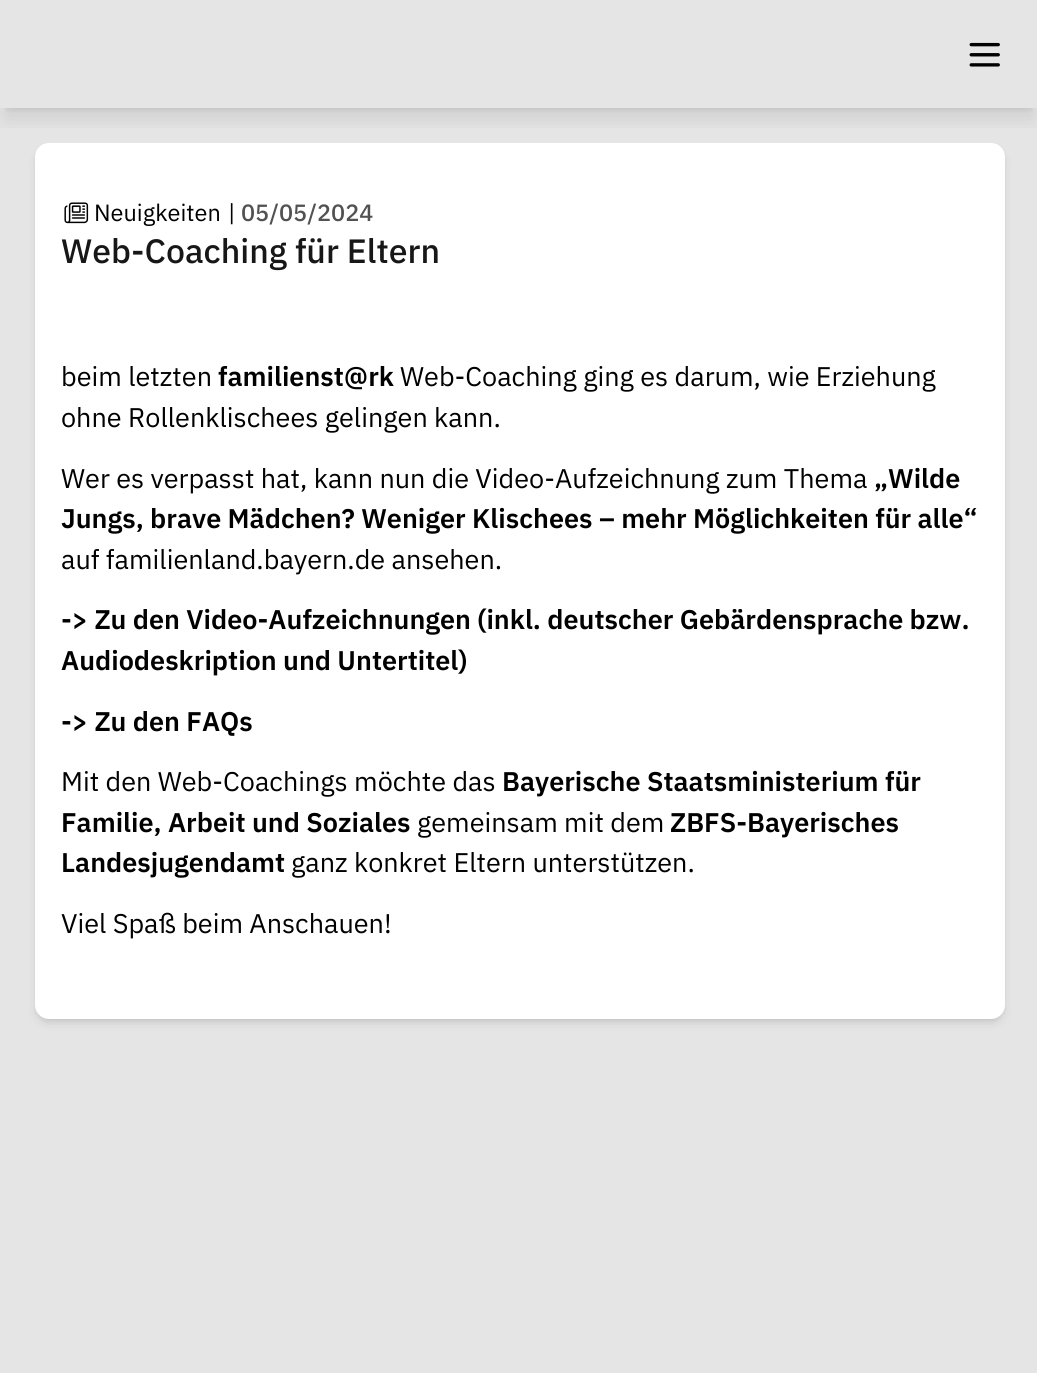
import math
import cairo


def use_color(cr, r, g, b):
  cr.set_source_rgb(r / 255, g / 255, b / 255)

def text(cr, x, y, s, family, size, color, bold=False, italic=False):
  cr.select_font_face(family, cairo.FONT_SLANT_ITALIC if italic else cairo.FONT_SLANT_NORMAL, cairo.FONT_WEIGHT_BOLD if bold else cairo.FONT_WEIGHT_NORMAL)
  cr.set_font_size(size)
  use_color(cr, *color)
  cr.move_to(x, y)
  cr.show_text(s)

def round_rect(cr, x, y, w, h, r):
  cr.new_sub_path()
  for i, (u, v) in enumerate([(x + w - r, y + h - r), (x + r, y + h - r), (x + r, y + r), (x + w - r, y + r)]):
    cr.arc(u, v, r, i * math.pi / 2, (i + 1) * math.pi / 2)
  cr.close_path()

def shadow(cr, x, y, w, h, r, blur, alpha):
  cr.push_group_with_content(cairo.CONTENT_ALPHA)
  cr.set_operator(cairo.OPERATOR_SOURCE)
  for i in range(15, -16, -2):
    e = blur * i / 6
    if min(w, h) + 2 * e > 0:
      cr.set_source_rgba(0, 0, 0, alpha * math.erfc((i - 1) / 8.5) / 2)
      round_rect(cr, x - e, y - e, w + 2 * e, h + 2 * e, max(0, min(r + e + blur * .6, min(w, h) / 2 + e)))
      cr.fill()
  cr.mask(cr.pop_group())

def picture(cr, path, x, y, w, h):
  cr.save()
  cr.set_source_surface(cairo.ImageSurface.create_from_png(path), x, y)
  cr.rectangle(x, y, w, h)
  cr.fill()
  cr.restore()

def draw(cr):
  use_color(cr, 229, 229, 229)
  cr.paint()
  cr.save()
  cr.rectangle(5, 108, 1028, 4)
  cr.clip()
  use_color(cr, 0, 0, 0)
  shadow(cr, 6, 12, 1026, 96, 0, 4.5, 0.1)
  cr.restore()
  use_color(cr, 0, 0, 0)
  shadow(cr, 38, 149, 964, 870, 11, 3, 0.1)
  shadow(cr, 36, 150, 968, 873, 12, 4.5, 0.1)
  use_color(cr, 255, 255, 255)
  round_rect(cr, 35, 143, 970, 876, 14)
  cr.fill()
  cr.save()
  cr.rectangle(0, 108, 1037, 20)
  cr.clip()
  use_color(cr, 0, 0, 0)
  shadow(cr, 5, 20, 1029, 99, 0, 11, 0.1)
  cr.restore()
  picture(cr, "img_01.png", 969, 42, 31, 25)
  picture(cr, "img_02.png", 64, 202, 25, 22)
  text(cr, 94, 221, "Neuigkeiten", "IBM Plex Sans", 23.5, (0, 0, 0))
  text(cr, 228, 221, "|", "IBM Plex Sans", 23.5, (0, 0, 0))
  text(cr, 241, 221, "05/05/2024", "IBM Plex Sans Medium", 23.5, (82, 82, 82))
  text(cr, 61, 263, "Web-Coaching für Eltern", "IBM Plex Sans Medium", 33.75, (23, 23, 23))
  text(cr, 61, 386, "beim letzten", "IBM Plex Sans", 27, (0, 0, 0))
  text(cr, 218, 386, "familienst@rk", "IBM Plex Sans SemiBold", 27, (0, 0, 0))
  text(cr, 400, 386, "Web-Coaching ging es darum, wie Erziehung", "IBM Plex Sans", 27, (0, 0, 0))
  text(cr, 61, 427, "ohne Rollenklischees gelingen kann.", "IBM Plex Sans", 27, (0, 0, 0))
  text(cr, 61, 488, "Wer es verpasst hat, kann nun die Video-Aufzeichnung zum Thema", "IBM Plex Sans", 27, (0, 0, 0))
  text(cr, 874, 488, "„Wilde", "IBM Plex Sans SemiBold", 27, (0, 0, 0))
  text(cr, 61, 528, "Jungs, brave Mädchen? Weniger Klischees – mehr Möglichkeiten für alle“", "IBM Plex Sans SemiBold", 27, (0, 0, 0))
  text(cr, 61, 569, "auf familienland.bayern.de ansehen.", "IBM Plex Sans", 27, (0, 0, 0))
  text(cr, 61, 629, "-> Zu den Video-Aufzeichnungen (inkl. deutscher Gebärdensprache bzw.", "IBM Plex Sans SemiBold", 27, (0, 0, 0))
  text(cr, 61, 670, "Audiodeskription und Untertitel)", "IBM Plex Sans SemiBold", 27, (0, 0, 0))
  text(cr, 61, 731, "-> Zu den FAQs", "IBM Plex Sans SemiBold", 27, (0, 0, 0))
  text(cr, 61, 791, "Mit den Web-Coachings möchte das", "IBM Plex Sans", 27, (0, 0, 0))
  text(cr, 502, 791, "Bayerische Staatsministerium für", "IBM Plex Sans SemiBold", 27, (0, 0, 0))
  text(cr, 61, 832, "Familie, Arbeit und Soziales", "IBM Plex Sans SemiBold", 27, (0, 0, 0))
  text(cr, 417, 832, "gemeinsam mit dem", "IBM Plex Sans", 27, (0, 0, 0))
  text(cr, 670, 832, "ZBFS-Bayerisches", "IBM Plex Sans SemiBold", 27, (0, 0, 0))
  text(cr, 61, 872, "Landesjugendamt", "IBM Plex Sans SemiBold", 27, (0, 0, 0))
  text(cr, 291, 872, "ganz konkret Eltern unterstützen.", "IBM Plex Sans", 27, (0, 0, 0))
  text(cr, 61, 933, "Viel Spaß beim Anschauen!", "IBM Plex Sans", 27, (0, 0, 0))


surface = cairo.ImageSurface(cairo.FORMAT_RGB24, 1037, 1373)
cr = cairo.Context(surface)
options = cairo.FontOptions()
options.set_hint_metrics(cairo.HINT_METRICS_OFF)
options.set_hint_style(cairo.HINT_STYLE_NONE)
cr.set_font_options(options)
cr.set_miter_limit(4)
draw(cr)
surface.write_to_png("out.png")
